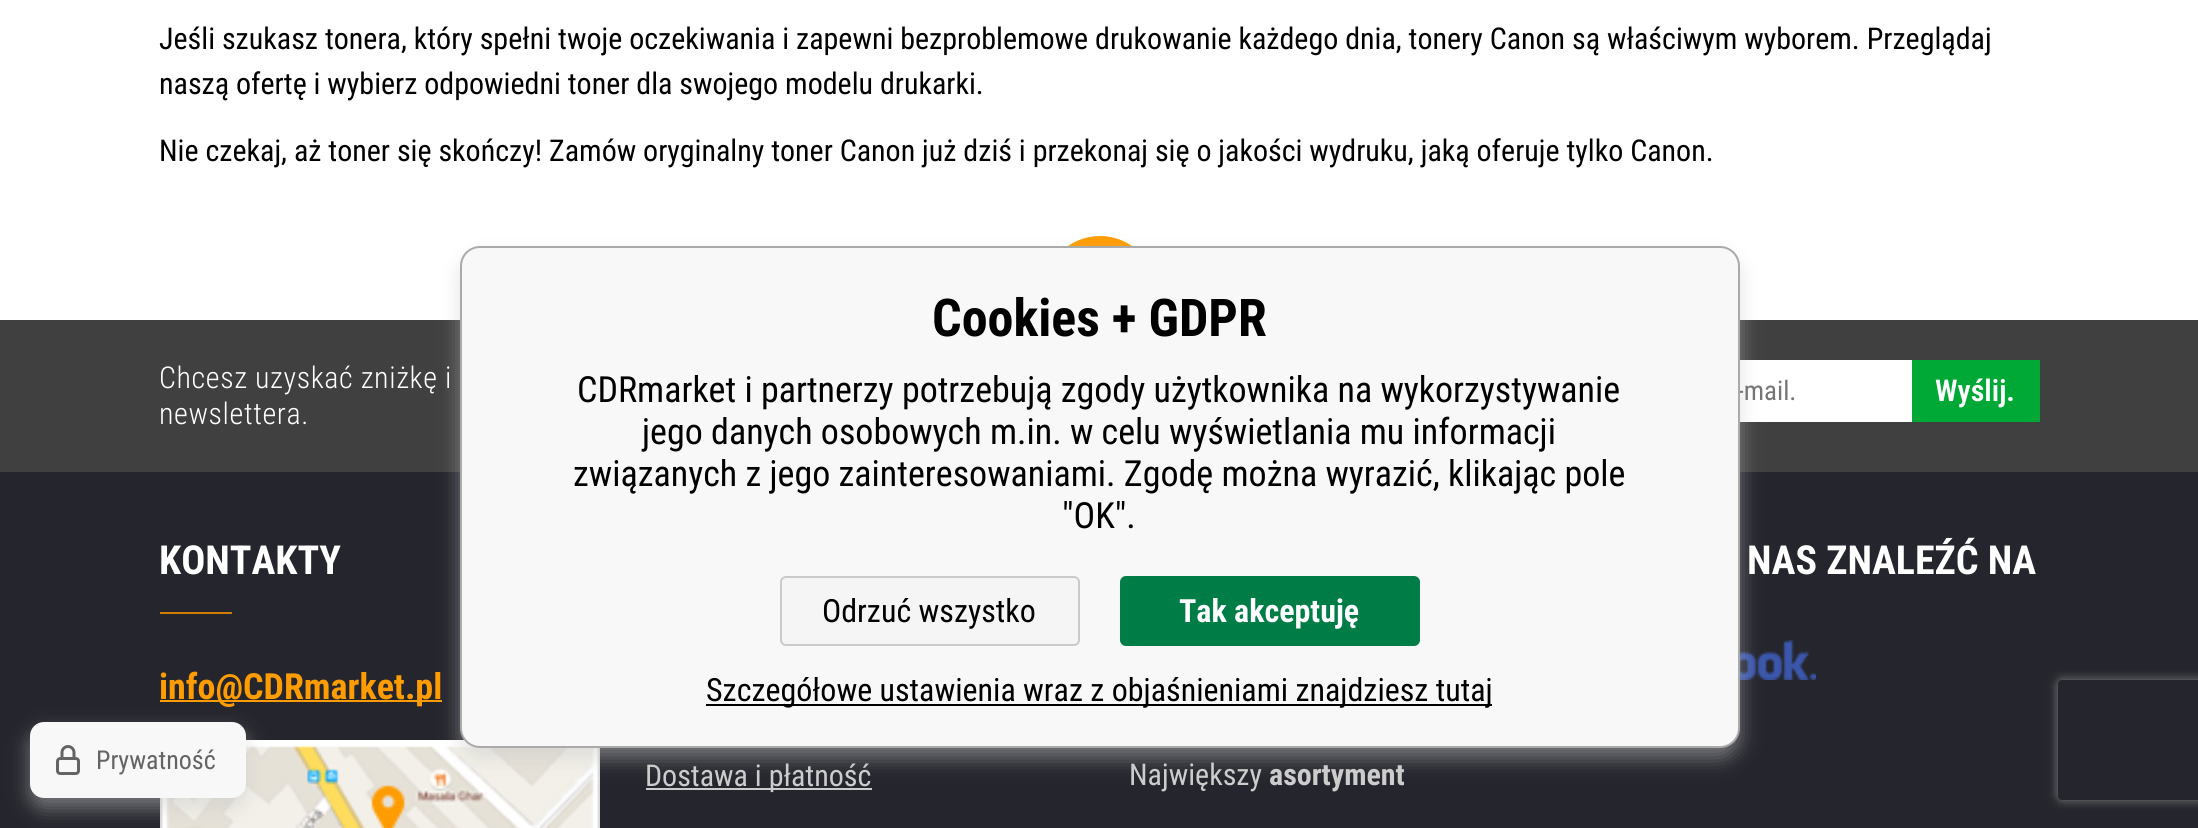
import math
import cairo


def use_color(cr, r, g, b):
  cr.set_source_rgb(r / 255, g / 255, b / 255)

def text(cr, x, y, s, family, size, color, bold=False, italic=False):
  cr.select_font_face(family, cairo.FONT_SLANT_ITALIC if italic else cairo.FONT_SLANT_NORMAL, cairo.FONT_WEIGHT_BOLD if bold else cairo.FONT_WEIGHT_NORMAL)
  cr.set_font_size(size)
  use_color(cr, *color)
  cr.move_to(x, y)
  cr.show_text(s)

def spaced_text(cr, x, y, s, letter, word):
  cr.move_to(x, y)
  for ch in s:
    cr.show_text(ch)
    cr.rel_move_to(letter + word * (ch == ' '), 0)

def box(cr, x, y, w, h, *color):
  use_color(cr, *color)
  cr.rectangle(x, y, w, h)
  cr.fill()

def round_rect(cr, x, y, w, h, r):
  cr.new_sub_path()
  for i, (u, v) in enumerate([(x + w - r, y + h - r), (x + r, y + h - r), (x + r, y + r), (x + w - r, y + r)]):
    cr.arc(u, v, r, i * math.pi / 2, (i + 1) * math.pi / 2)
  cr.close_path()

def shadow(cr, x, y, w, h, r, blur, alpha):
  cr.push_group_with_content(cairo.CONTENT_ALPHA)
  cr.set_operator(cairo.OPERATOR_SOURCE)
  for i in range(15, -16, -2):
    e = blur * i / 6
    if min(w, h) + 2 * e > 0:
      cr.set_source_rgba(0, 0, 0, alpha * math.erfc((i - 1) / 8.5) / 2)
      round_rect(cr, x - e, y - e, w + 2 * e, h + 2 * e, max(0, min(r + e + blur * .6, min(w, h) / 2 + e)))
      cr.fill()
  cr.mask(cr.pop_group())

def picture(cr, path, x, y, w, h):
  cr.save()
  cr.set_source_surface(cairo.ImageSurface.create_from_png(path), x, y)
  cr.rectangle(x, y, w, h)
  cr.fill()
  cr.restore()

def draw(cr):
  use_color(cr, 255, 255, 255)
  cr.paint()
  use_color(cr, 255, 156, 1)
  cr.new_path()
  cr.move_to(1100, 236)
  cr.curve_to(1131, 236, 1156, 261, 1156, 292)
  cr.line_to(1156, 320)
  cr.line_to(1044, 320)
  cr.line_to(1044, 292)
  cr.curve_to(1044, 261, 1069, 236, 1100, 236)
  cr.close_path()
  cr.fill()
  box(cr, 0, 320, 2198, 152, 64, 64, 64)
  box(cr, 1740, 360, 172, 62, 255, 255, 255)
  box(cr, 1912, 360, 128, 62, 0, 169, 53)
  box(cr, 0, 472, 2198, 356, 37, 38, 45)
  box(cr, 160, 612, 72, 2, 205, 125, 0)
  box(cr, 160, 700, 282, 2, 255, 156, 1)
  picture(cr, "img_01.png", 160, 740, 440, 88)
  picture(cr, "img_02.png", 1740, 640, 76, 40)
  box(cr, 646, 788, 226, 2, 204, 204, 204)
  use_color(cr, 200, 200, 200)
  shadow(cr, 460, 256, 1280, 502, 20, 10, 0.5)
  shadow(cr, 30, 732, 216, 76, 14, 10, 0.5)
  use_color(cr, 248, 248, 248)
  round_rect(cr, 30, 722, 216, 76, 14)
  cr.fill()
  picture(cr, "img_03.png", 56, 745, 24, 30)
  cr.save()
  cr.set_fill_rule(cairo.FILL_RULE_EVEN_ODD)
  cr.new_path()
  cr.move_to(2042, 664)
  cr.line_to(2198, 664)
  cr.line_to(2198, 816)
  cr.line_to(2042, 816)
  cr.close_path()
  cr.move_to(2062, 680)
  cr.line_to(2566, 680)
  cr.curve_to(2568, 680, 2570, 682, 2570, 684)
  cr.line_to(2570, 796)
  cr.curve_to(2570, 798, 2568, 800, 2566, 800)
  cr.line_to(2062, 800)
  cr.curve_to(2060, 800, 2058, 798, 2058, 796)
  cr.line_to(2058, 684)
  cr.curve_to(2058, 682, 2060, 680, 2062, 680)
  cr.close_path()
  cr.clip()
  use_color(cr, 128, 128, 128)
  shadow(cr, 2058, 680, 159, 120, 4, 5, 1)
  cr.restore()
  text(cr, 159, 49, "Jeśli szukasz tonera, który spełni twoje oczekiwania i zapewni bezproblemowe drukowanie każdego dnia, tonery Canon są właściwym wyborem. Przeglądaj", "Roboto Condensed", 30, (0, 0, 0))
  text(cr, 159, 94, "naszą ofertę i wybierz odpowiedni toner dla swojego modelu drukarki.", "Roboto Condensed", 30, (0, 0, 0))
  text(cr, 159, 161, "Nie czekaj, aż toner się skończy! Zamów oryginalny toner Canon już dziś i przekonaj się o jakości wydruku, jaką oferuje tylko Canon.", "Roboto Condensed", 30, (0, 0, 0))
  cr.select_font_face("Roboto Condensed Light")
  use_color(cr, 255, 255, 255)
  spaced_text(cr, 159, 388, "Chcesz uzyskać zniżkę i", 0.6, 0)
  spaced_text(cr, 159, 424, "newslettera.", 0.6, 0)
  text(cr, 1737, 400, "-mail.", "Roboto Condensed", 27, (117, 117, 117))
  text(cr, 1935, 401, "Wyślij.", "Roboto Condensed SemiBold", 30, (255, 255, 255))
  text(cr, 159, 574, "KONTAKTY", "Roboto Condensed", 40, (255, 255, 255), bold=True)
  text(cr, 159, 699, "info@CDRmarket.pl", "Roboto Condensed", 36, (255, 156, 1), bold=True)
  text(cr, 1747, 574, "NAS ZNALEŹĆ NA", "Roboto Condensed", 40, (255, 255, 255), bold=True)
  text(cr, 645, 786, "Dostawa i płatność", "Roboto Condensed", 30, (204, 204, 204))
  text(cr, 1129, 785, "Największy", "Roboto Condensed", 30, (204, 204, 204))
  text(cr, 1269, 785, "asortyment", "Roboto Condensed", 30, (204, 204, 204), bold=True)
  use_color(cr, 248, 248, 248)
  round_rect(cr, 461, 247, 1278, 500, 19)
  cr.fill_preserve()
  use_color(cr, 170, 170, 170)
  cr.stroke()
  text(cr, 932, 336, "Cookies + GDPR", "Roboto Condensed", 52, (0, 0, 0), bold=True)
  text(cr, 577, 402, "CDRmarket i partnerzy potrzebują zgody użytkownika na wykorzystywanie", "Roboto Condensed", 36, (0, 0, 0))
  text(cr, 642, 444, "jego danych osobowych m.in. w celu wyświetlania mu informacji", "Roboto Condensed", 36, (0, 0, 0))
  text(cr, 573, 486, "związanych z jego zainteresowaniami. Zgodę można wyrazić, klikając pole", "Roboto Condensed", 36, (0, 0, 0))
  text(cr, 1062, 528, "\"OK\".", "Roboto Condensed", 36, (0, 0, 0))
  use_color(cr, 245, 245, 245)
  round_rect(cr, 781, 577, 298, 68, 5)
  cr.fill_preserve()
  use_color(cr, 202, 202, 202)
  cr.stroke()
  text(cr, 822, 622, "Odrzuć wszystko", "Roboto Condensed", 32, (0, 0, 0))
  use_color(cr, 0, 124, 71)
  round_rect(cr, 1121, 577, 298, 68, 5)
  cr.fill_preserve()
  cr.stroke()
  text(cr, 1179, 622, "Tak akceptuję", "Roboto Condensed", 32, (255, 255, 255), bold=True)
  box(cr, 706, 704, 786, 2, 0, 0, 0)
  text(cr, 706, 701, "Szczegółowe ustawienia wraz z objaśnieniami znajdziesz tutaj", "Roboto Condensed", 32, (0, 0, 0))
  text(cr, 96, 769, "Prywatność", "Roboto Condensed", 26, (100, 100, 100))


surface = cairo.ImageSurface(cairo.FORMAT_RGB24, 2198, 828)
cr = cairo.Context(surface)
options = cairo.FontOptions()
options.set_hint_metrics(cairo.HINT_METRICS_OFF)
options.set_hint_style(cairo.HINT_STYLE_NONE)
cr.set_font_options(options)
cr.set_miter_limit(4)
draw(cr)
surface.write_to_png("out.png")
